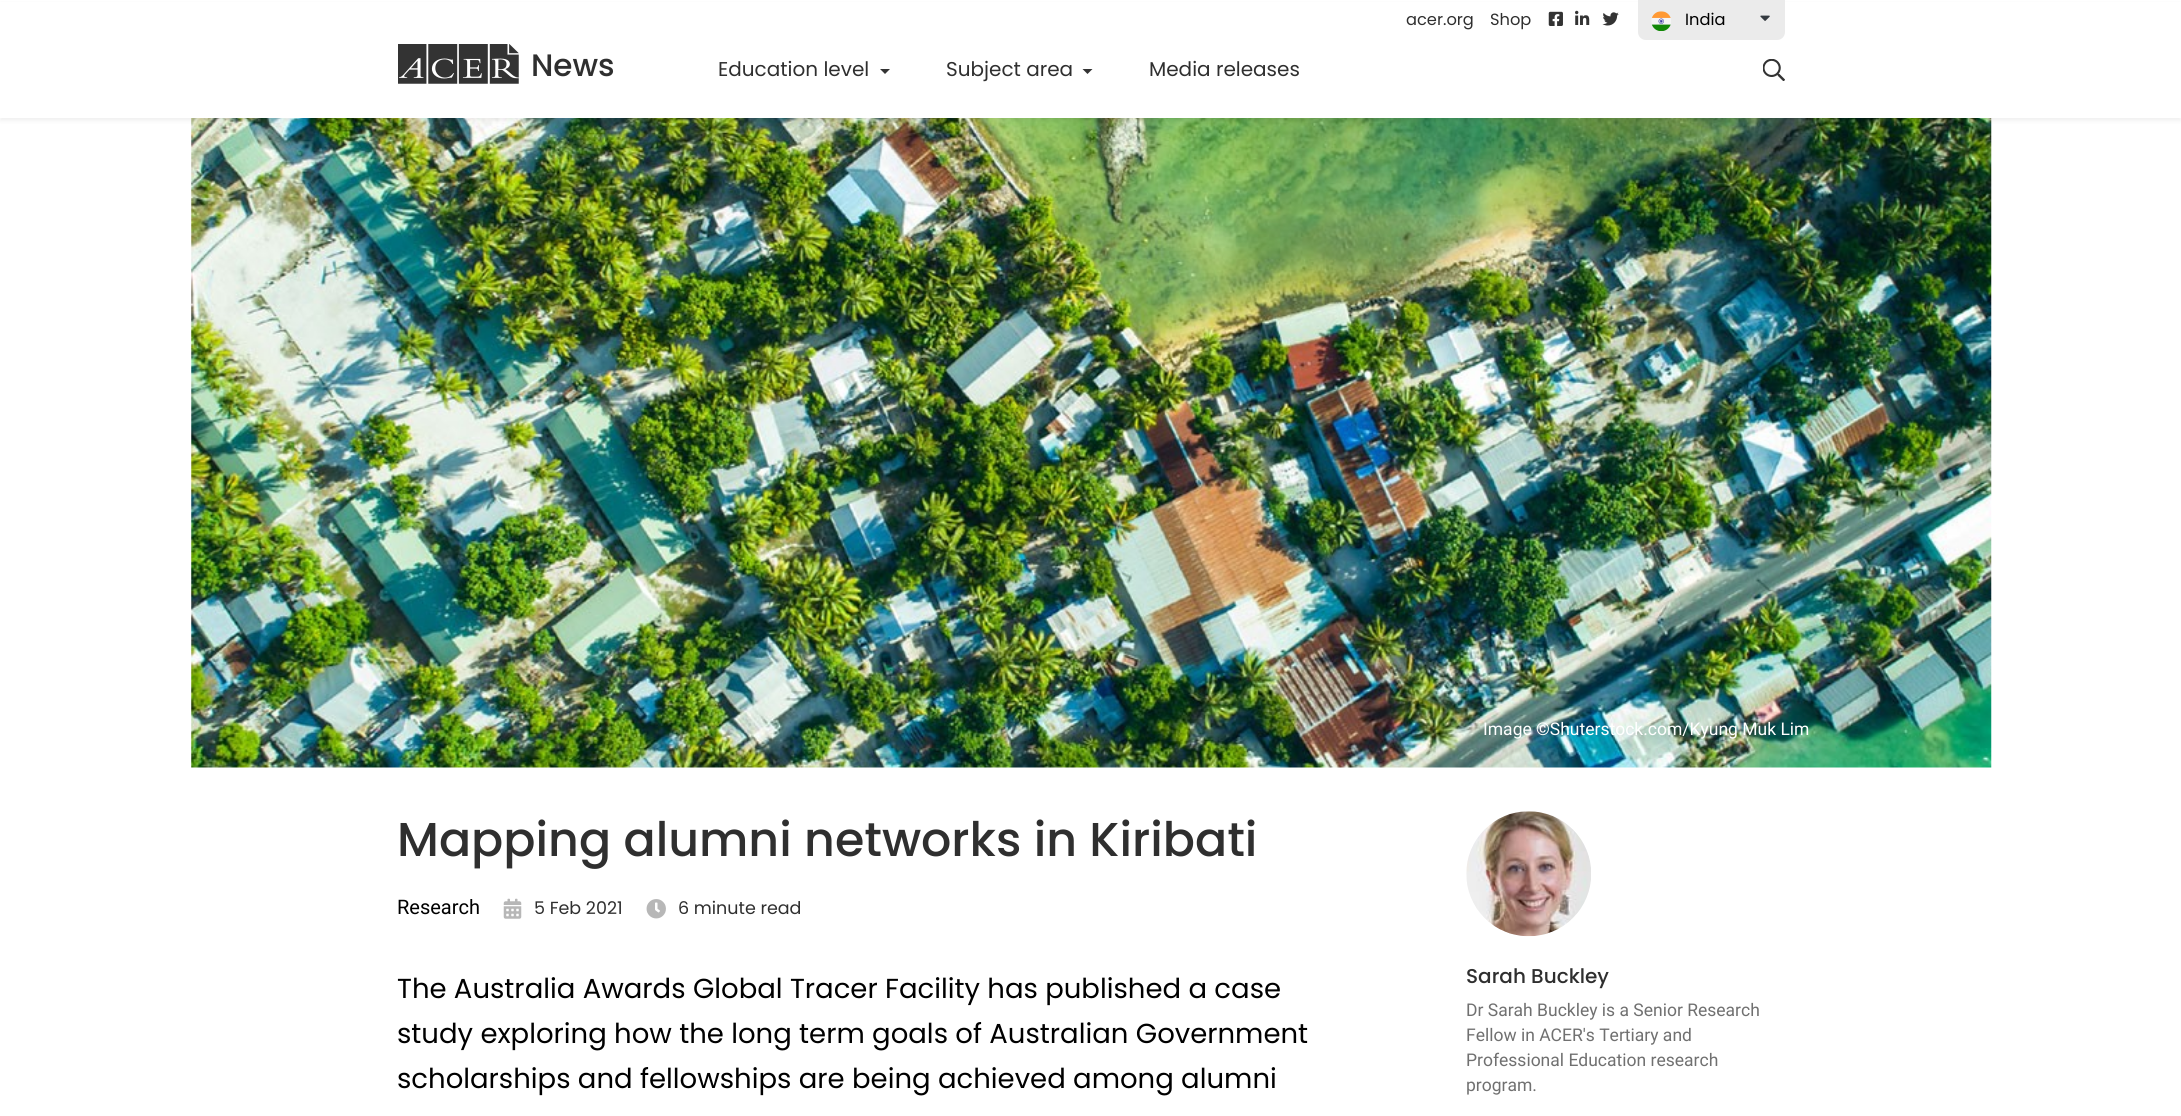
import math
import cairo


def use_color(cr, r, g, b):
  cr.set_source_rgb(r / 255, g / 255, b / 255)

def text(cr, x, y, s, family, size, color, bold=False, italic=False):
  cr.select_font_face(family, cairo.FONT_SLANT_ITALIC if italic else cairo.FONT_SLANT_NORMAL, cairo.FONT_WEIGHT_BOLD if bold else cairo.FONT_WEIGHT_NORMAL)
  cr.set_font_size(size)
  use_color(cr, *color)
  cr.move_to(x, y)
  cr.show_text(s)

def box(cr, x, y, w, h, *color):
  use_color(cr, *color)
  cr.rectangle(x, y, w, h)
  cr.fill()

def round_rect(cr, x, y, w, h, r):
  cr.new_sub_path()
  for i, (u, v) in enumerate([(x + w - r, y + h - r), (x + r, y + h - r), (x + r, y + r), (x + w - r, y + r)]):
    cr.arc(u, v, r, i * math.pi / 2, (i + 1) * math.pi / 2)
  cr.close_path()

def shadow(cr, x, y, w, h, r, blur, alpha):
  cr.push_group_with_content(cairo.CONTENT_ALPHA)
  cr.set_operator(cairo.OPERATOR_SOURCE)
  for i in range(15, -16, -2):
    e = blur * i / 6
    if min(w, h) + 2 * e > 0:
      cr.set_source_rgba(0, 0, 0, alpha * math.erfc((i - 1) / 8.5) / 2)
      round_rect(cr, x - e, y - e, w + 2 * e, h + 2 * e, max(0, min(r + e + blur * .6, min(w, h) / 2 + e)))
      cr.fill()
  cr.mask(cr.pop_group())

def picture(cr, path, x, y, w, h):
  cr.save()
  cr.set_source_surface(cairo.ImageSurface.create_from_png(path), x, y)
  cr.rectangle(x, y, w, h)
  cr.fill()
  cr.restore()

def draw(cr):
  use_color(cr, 255, 255, 255)
  cr.paint()
  picture(cr, "img_08.png", 191, 118, 1801, 650)
  use_color(cr, 0, 0, 0)
  shadow(cr, 0, 4, 2181, 117, 0, 2, 0.06)
  box(cr, 0, 2, 2181, 116, 255, 255, 255)
  picture(cr, "img_01.png", 1548, 11, 15, 15)
  picture(cr, "img_02.png", 1575, 10, 15, 15)
  picture(cr, "img_03.png", 1602, 12, 17, 14)
  use_color(cr, 235, 235, 235)
  cr.new_path()
  cr.move_to(1638, 0)
  cr.line_to(1785, 0)
  cr.line_to(1785, 32)
  cr.curve_to(1785, 36.5, 1781.5, 40, 1777, 40)
  cr.line_to(1646, 40)
  cr.curve_to(1641.5, 40, 1638, 36.5, 1638, 32)
  cr.close_path()
  cr.fill()
  picture(cr, "img_04.png", 1651, 11, 20, 20)
  picture(cr, "img_05.png", 1760, 15, 10, 6)
  picture(cr, "img_06.png", 398, 44, 121, 40)
  use_color(cr, 51, 51, 51)
  cr.new_path()
  cr.move_to(880, 69)
  cr.line_to(890, 69)
  cr.line_to(885, 74)
  cr.close_path()
  cr.fill()
  cr.new_path()
  cr.move_to(1082.5, 69)
  cr.line_to(1092.5, 69)
  cr.line_to(1087.5, 74)
  cr.close_path()
  cr.fill()
  picture(cr, "img_07.png", 1763, 59, 22, 22)
  picture(cr, "img_09.png", 503, 898, 19, 21)
  picture(cr, "img_10.png", 646, 899, 20, 20)
  picture(cr, "img_11.png", 1466, 811, 125, 126)
  text(cr, 1406, 25, "acer.org", "Poppins", 16.25, (47, 47, 47))
  text(cr, 1490, 25, "Shop", "Poppins", 16.25, (47, 47, 47))
  text(cr, 1685, 25, "India", "Poppins", 16.25, (0, 0, 0))
  text(cr, 531, 76, "News", "Poppins Medium", 31, (47, 47, 47))
  text(cr, 718, 76, "Education level", "Poppins", 20, (47, 47, 47))
  text(cr, 946, 76, "Subject area", "Poppins", 20, (47, 47, 47))
  text(cr, 1149, 76, "Media releases", "Poppins", 20, (47, 47, 47))
  text(cr, 1483, 735, "Image ©Shuterstock.com/Kyung Muk Lim", "Roboto", 17.5, (255, 255, 255))
  text(cr, 397, 856, "Mapping alumni networks in Kiribati", "Poppins Medium", 47.5, (47, 47, 47))
  text(cr, 397, 914, "Research", "Roboto", 20, (0, 0, 0))
  text(cr, 534, 914, "5 Feb 2021", "Poppins", 17.5, (47, 47, 47))
  text(cr, 678, 914, "6 minute read", "Poppins", 17.5, (47, 47, 47))
  text(cr, 397, 998, "The Australia Awards Global Tracer Facility has published a case", "Poppins", 27.5, (0, 0, 0))
  text(cr, 397, 1043, "study exploring how the long term goals of Australian Government", "Poppins", 27.5, (0, 0, 0))
  text(cr, 397, 1088, "scholarships and fellowships are being achieved among alumni", "Poppins", 27.5, (0, 0, 0))
  text(cr, 1466, 983, "Sarah Buckley", "Poppins Medium", 20, (47, 47, 47))
  text(cr, 1466, 1016, "Dr Sarah Buckley is a Senior Research", "Roboto", 17.5, (112, 112, 112))
  text(cr, 1466, 1041, "Fellow in ACER's Tertiary and", "Roboto", 17.5, (112, 112, 112))
  text(cr, 1466, 1066, "Professional Education research", "Roboto", 17.5, (112, 112, 112))
  text(cr, 1466, 1091, "program.", "Roboto", 17.5, (112, 112, 112))


surface = cairo.ImageSurface(cairo.FORMAT_RGB24, 2181, 1116)
cr = cairo.Context(surface)
options = cairo.FontOptions()
options.set_hint_metrics(cairo.HINT_METRICS_OFF)
options.set_hint_style(cairo.HINT_STYLE_NONE)
cr.set_font_options(options)
cr.set_miter_limit(4)
draw(cr)
surface.write_to_png("out.png")
